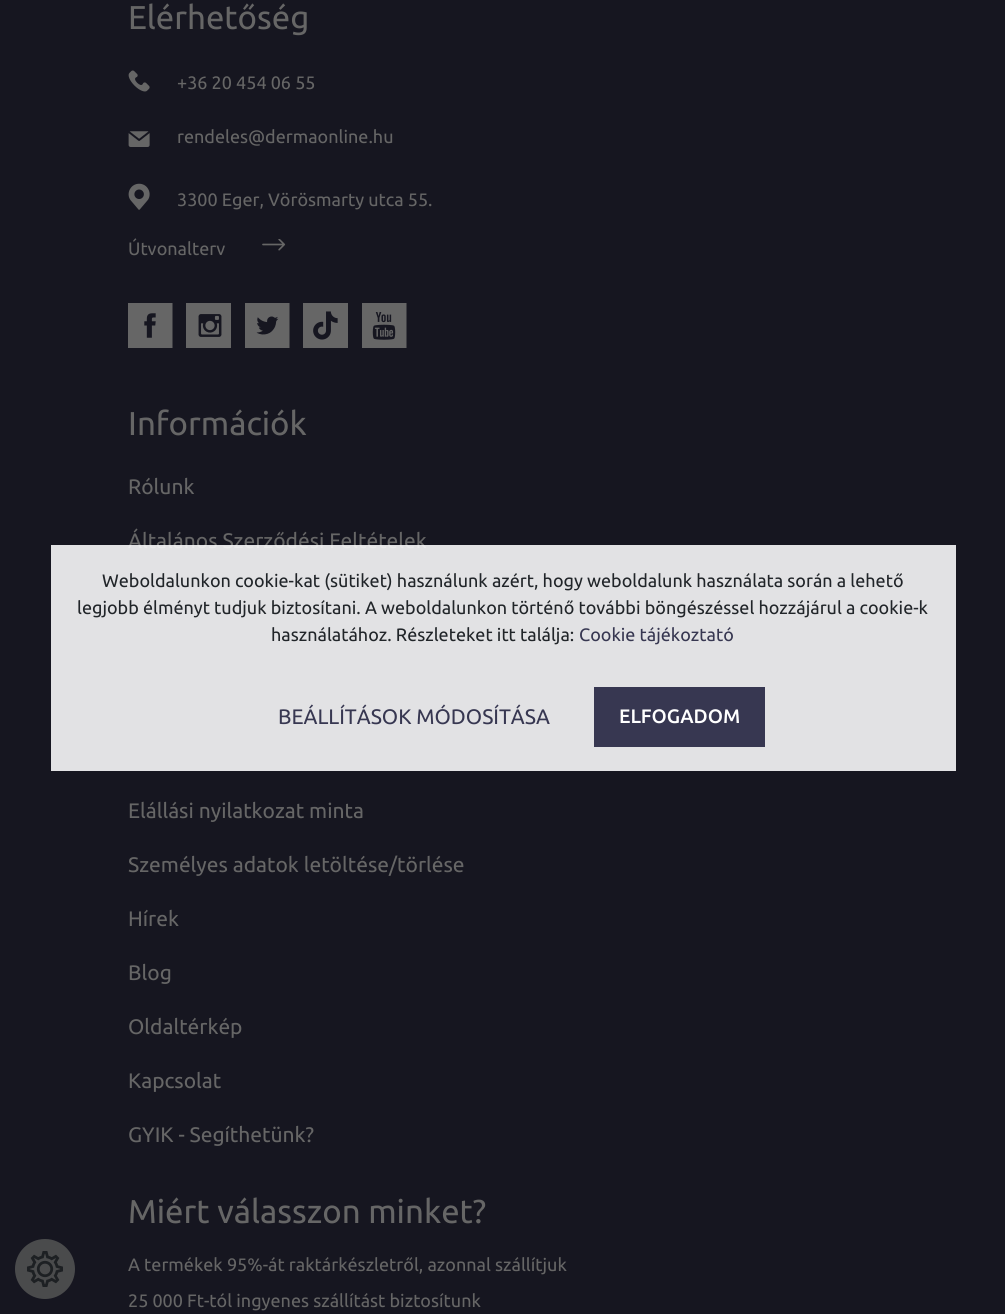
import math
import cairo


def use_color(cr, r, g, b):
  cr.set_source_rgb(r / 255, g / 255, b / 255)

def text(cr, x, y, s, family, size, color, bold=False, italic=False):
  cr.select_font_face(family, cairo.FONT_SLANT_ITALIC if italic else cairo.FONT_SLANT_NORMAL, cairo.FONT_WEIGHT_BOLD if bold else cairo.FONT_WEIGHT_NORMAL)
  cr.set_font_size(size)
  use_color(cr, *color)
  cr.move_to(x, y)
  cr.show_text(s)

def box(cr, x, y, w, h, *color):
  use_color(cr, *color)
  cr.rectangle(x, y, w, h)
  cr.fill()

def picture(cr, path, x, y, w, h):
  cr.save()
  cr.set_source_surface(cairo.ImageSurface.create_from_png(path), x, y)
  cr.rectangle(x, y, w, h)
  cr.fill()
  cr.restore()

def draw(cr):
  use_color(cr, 22, 22, 32)
  cr.paint()
  use_color(cr, 74, 75, 76)
  cr.arc(45, 1269, 30, 0, 2 * math.pi)
  cr.fill()
  picture(cr, "img_01.png", 27, 1251, 36, 36)
  picture(cr, "img_02.png", 128, 70, 22, 22)
  picture(cr, "img_03.png", 128, 131, 22, 16)
  picture(cr, "img_04.png", 128, 183, 22, 27)
  picture(cr, "img_05.png", 262, 239, 24, 12)
  picture(cr, "img_06.png", 128, 303, 45, 45)
  picture(cr, "img_07.png", 186, 303, 45, 45)
  picture(cr, "img_08.png", 245, 303, 45, 45)
  picture(cr, "img_09.png", 303, 303, 45, 45)
  picture(cr, "img_10.png", 362, 303, 45, 45)
  text(cr, 128, 29, "Elérhetőség", "Ubuntu", 33, (102, 102, 102))
  text(cr, 177, 89, "+36 20 454 06 55", "Ubuntu", 18, (102, 102, 102))
  text(cr, 177, 143, "rendeles@dermaonline.hu", "Ubuntu", 18, (102, 102, 102))
  text(cr, 177, 206, "3300 Eger, Vörösmarty utca 55.", "Ubuntu", 18, (102, 102, 102))
  text(cr, 128, 255, "Útvonalterv", "Ubuntu", 18, (102, 102, 102))
  text(cr, 128, 435, "Információk", "Ubuntu", 33, (102, 102, 102))
  text(cr, 128, 494, "Rólunk", "Ubuntu", 21, (102, 102, 102))
  text(cr, 128, 548, "Általános Szerződési Feltételek", "Ubuntu", 21, (102, 102, 102))
  text(cr, 128, 818, "Elállási nyilatkozat minta", "Ubuntu", 21, (102, 102, 102))
  text(cr, 128, 872, "Személyes adatok letöltése/törlése", "Ubuntu", 21, (102, 102, 102))
  text(cr, 128, 926, "Hírek", "Ubuntu", 21, (102, 102, 102))
  text(cr, 128, 980, "Blog", "Ubuntu", 21, (102, 102, 102))
  text(cr, 128, 1034, "Oldaltérkép", "Ubuntu", 21, (102, 102, 102))
  text(cr, 128, 1088, "Kapcsolat", "Ubuntu", 21, (102, 102, 102))
  text(cr, 128, 1142, "GYIK - Segíthetünk?", "Ubuntu", 21, (102, 102, 102))
  text(cr, 128, 1223, "Miért válasszon minket?", "Ubuntu", 33, (102, 102, 102))
  text(cr, 128, 1271, "A termékek 95%-át raktárkészletről, azonnal szállítjuk", "Ubuntu", 18, (102, 102, 102))
  text(cr, 128, 1307, "25 000 Ft-tól ingyenes szállítást biztosítunk", "Ubuntu", 18, (102, 102, 102))
  cr.set_source_rgba(0.973, 0.976, 0.98, 0.9)
  cr.rectangle(51, 545, 905, 226)
  cr.fill()
  text(cr, 102, 587, "Weboldalunkon cookie-kat (sütiket) használunk azért, hogy weboldalunk használata során a lehető", "Ubuntu", 18, (33, 37, 41))
  text(cr, 77, 614, "legjobb élményt tudjuk biztosítani. A weboldalunkon történő további böngészéssel hozzájárul a cookie-k", "Ubuntu", 18, (33, 37, 41))
  text(cr, 271, 641, "használatához. Részleteket itt találja:", "Ubuntu", 18, (33, 37, 41))
  text(cr, 579, 641, "Cookie tájékoztató", "Ubuntu", 18, (55, 55, 81))
  text(cr, 278, 724, "BEÁLLÍTÁSOK MÓDOSÍTÁSA", "Ubuntu", 21, (55, 55, 81))
  box(cr, 594, 687, 171, 60, 55, 55, 81)
  text(cr, 619, 723, "ELFOGADOM", "Ubuntu Medium", 19.5, (255, 255, 255))


surface = cairo.ImageSurface(cairo.FORMAT_RGB24, 1005, 1314)
cr = cairo.Context(surface)
options = cairo.FontOptions()
options.set_hint_metrics(cairo.HINT_METRICS_OFF)
options.set_hint_style(cairo.HINT_STYLE_NONE)
cr.set_font_options(options)
cr.set_miter_limit(4)
draw(cr)
surface.write_to_png("out.png")
